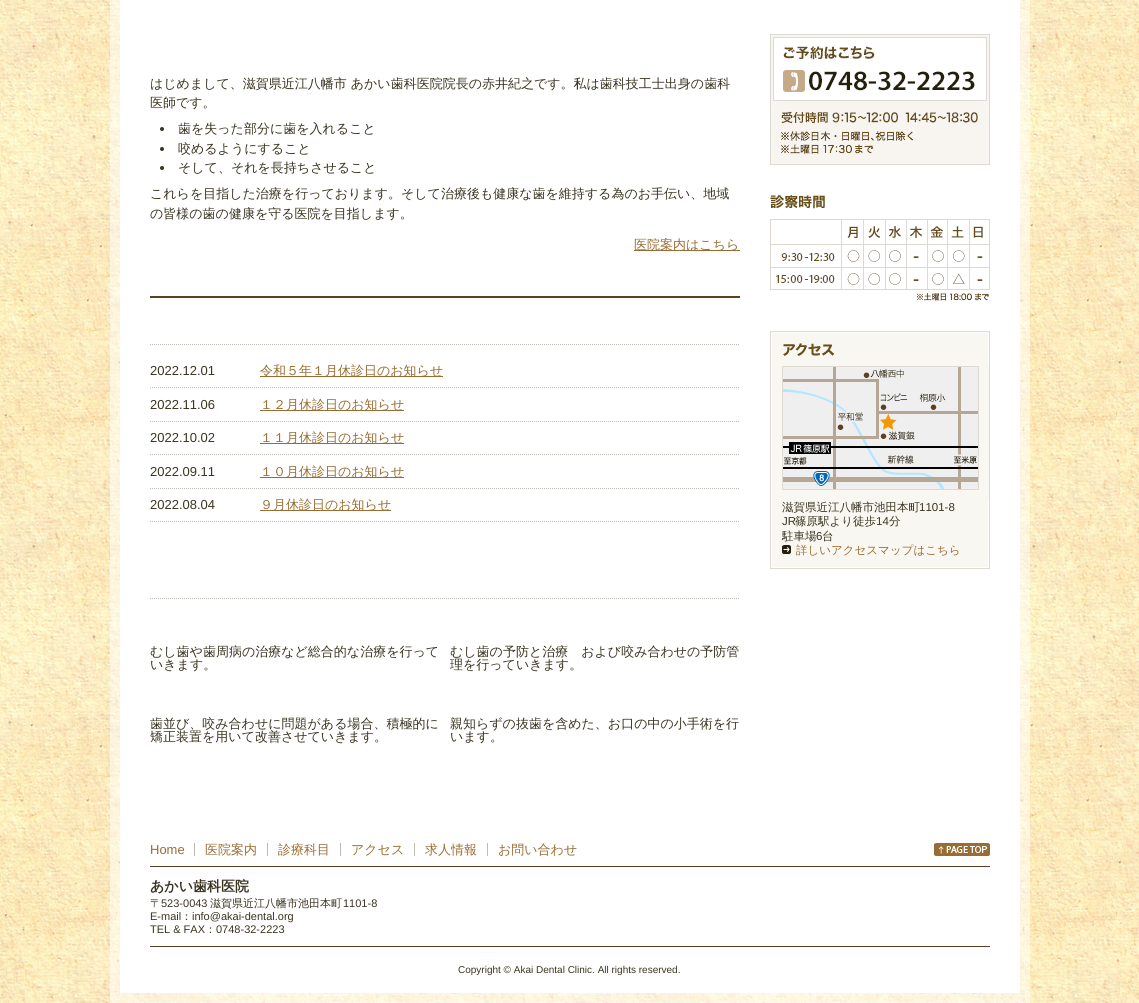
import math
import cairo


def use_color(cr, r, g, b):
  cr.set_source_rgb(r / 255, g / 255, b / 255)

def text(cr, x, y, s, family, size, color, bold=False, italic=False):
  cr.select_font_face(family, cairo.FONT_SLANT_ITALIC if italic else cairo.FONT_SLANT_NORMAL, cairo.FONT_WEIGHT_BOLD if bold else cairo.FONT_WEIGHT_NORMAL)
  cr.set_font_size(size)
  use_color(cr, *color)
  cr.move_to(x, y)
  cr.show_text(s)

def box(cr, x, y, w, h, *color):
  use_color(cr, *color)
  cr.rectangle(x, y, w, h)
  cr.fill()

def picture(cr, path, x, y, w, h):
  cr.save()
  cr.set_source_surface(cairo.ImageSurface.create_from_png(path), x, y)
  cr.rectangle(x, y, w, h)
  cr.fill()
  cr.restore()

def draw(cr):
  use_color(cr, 255, 255, 255)
  cr.paint()
  picture(cr, "img_01.png", 0, 0, 1139, 1003)
  cr.set_source_rgba(1, 1, 1, 0.5)
  cr.rectangle(110, 0, 920, 1003)
  cr.fill()
  box(cr, 120, 0, 900, 993, 255, 255, 255)
  use_color(cr, 57, 52, 33)
  cr.arc(162, 129, 2, 0, 2 * math.pi)
  cr.fill()
  cr.arc(162, 149, 2, 0, 2 * math.pi)
  cr.fill()
  cr.arc(162, 168, 2, 0, 2 * math.pi)
  cr.fill()
  box(cr, 634, 250, 106, 1, 153, 108, 51)
  box(cr, 150, 296, 590, 2, 91, 64, 33)
  cr.new_path()
  cr.move_to(150, 344.5)
  cr.line_to(740, 344.5)
  use_color(cr, 189, 188, 182)
  cr.set_line_width(1)
  cr.set_dash([1, 1])
  cr.stroke()
  cr.new_path()
  cr.move_to(150, 387.5)
  cr.line_to(740, 387.5)
  cr.stroke()
  box(cr, 260, 376, 183, 1, 153, 108, 51)
  cr.new_path()
  cr.move_to(150, 421.5)
  cr.line_to(740, 421.5)
  use_color(cr, 189, 188, 182)
  cr.stroke()
  box(cr, 260, 410, 144, 1, 153, 108, 51)
  cr.new_path()
  cr.move_to(150, 454.5)
  cr.line_to(740, 454.5)
  use_color(cr, 189, 188, 182)
  cr.stroke()
  box(cr, 260, 443, 144, 1, 153, 108, 51)
  cr.new_path()
  cr.move_to(150, 488.5)
  cr.line_to(740, 488.5)
  use_color(cr, 189, 188, 182)
  cr.stroke()
  box(cr, 260, 477, 144, 1, 153, 108, 51)
  cr.new_path()
  cr.move_to(150, 521.5)
  cr.line_to(740, 521.5)
  use_color(cr, 189, 188, 182)
  cr.stroke()
  box(cr, 260, 510, 131, 1, 153, 108, 51)
  cr.new_path()
  cr.move_to(150, 598.5)
  cr.line_to(740, 598.5)
  use_color(cr, 189, 188, 182)
  cr.stroke()
  picture(cr, "img_02.png", 770, 34, 220, 131)
  picture(cr, "img_03.png", 770, 195, 55, 14)
  picture(cr, "img_04.png", 770, 219, 220, 82)
  cr.rectangle(770.5, 331.5, 219, 237)
  use_color(cr, 222, 217, 211)
  cr.set_dash([])
  cr.stroke()
  box(cr, 772, 333, 216, 33, 249, 247, 242)
  picture(cr, "img_05.png", 783, 343, 52, 13)
  box(cr, 772, 366, 217, 134, 249, 247, 242)
  picture(cr, "img_06.png", 782, 366, 197, 124)
  box(cr, 772, 500, 216, 67, 249, 247, 242)
  picture(cr, "img_07.png", 782, 545, 9, 9)
  box(cr, 194, 843, 1, 13, 189, 188, 182)
  box(cr, 267, 843, 1, 13, 189, 188, 182)
  box(cr, 340, 843, 1, 13, 189, 188, 182)
  box(cr, 414, 843, 1, 13, 189, 188, 182)
  box(cr, 487, 843, 1, 13, 189, 188, 182)
  picture(cr, "img_08.png", 934, 843, 56, 13)
  box(cr, 150, 866, 840, 1, 91, 64, 33)
  box(cr, 150, 946, 840, 1, 91, 64, 33)
  text(cr, 150, 88, "はじめまして、滋賀県近江八幡市 あかい歯科医院院長の赤井紀之です。私は歯科技工士出身の歯科", "WenQuanYi Zen Hei Medium", 13, (57, 52, 33))
  text(cr, 150, 107, "医師です。", "WenQuanYi Zen Hei Medium", 13, (57, 52, 33))
  text(cr, 178, 133, "歯を失った部分に歯を入れること", "WenQuanYi Zen Hei Medium", 13, (57, 52, 33))
  text(cr, 178, 153, "咬めるようにすること", "WenQuanYi Zen Hei Medium", 13, (57, 52, 33))
  text(cr, 178, 172, "そして、それを長持ちさせること", "WenQuanYi Zen Hei Medium", 13, (57, 52, 33))
  text(cr, 150, 198, "これらを目指した治療を行っております。そして治療後も健康な歯を維持する為のお手伝い、地域", "WenQuanYi Zen Hei Medium", 13, (57, 52, 33))
  text(cr, 150, 218, "の皆様の歯の健康を守る医院を目指します。", "WenQuanYi Zen Hei Medium", 13, (57, 52, 33))
  text(cr, 634, 249, "医院案内はこちら", "WenQuanYi Zen Hei Medium", 13, (153, 108, 51))
  text(cr, 150, 375, "2022.12.01", "Liberation Sans", 13, (57, 52, 33))
  text(cr, 260, 375, "令和５年１月休診日のお知らせ", "WenQuanYi Zen Hei Medium", 13, (153, 108, 51))
  text(cr, 150, 409, "2022.11.06", "Liberation Sans", 13, (57, 52, 33))
  text(cr, 260, 409, "１２月休診日のお知らせ", "WenQuanYi Zen Hei Medium", 13, (153, 108, 51))
  text(cr, 150, 442, "2022.10.02", "Liberation Sans", 13, (57, 52, 33))
  text(cr, 260, 442, "１１月休診日のお知らせ", "WenQuanYi Zen Hei Medium", 13, (153, 108, 51))
  text(cr, 150, 476, "2022.09.11", "Liberation Sans", 13, (57, 52, 33))
  text(cr, 260, 476, "１０月休診日のお知らせ", "WenQuanYi Zen Hei Medium", 13, (153, 108, 51))
  text(cr, 150, 509, "2022.08.04", "Liberation Sans", 13, (57, 52, 33))
  text(cr, 260, 509, "９月休診日のお知らせ", "WenQuanYi Zen Hei Medium", 13, (153, 108, 51))
  text(cr, 150, 656, "むし歯や歯周病の治療など総合的な治療を行って", "WenQuanYi Zen Hei Medium", 13, (57, 52, 33))
  text(cr, 150, 669, "いきます。", "WenQuanYi Zen Hei Medium", 13, (57, 52, 33))
  text(cr, 450, 656, "むし歯の予防と治療　および咬み合わせの予防管", "WenQuanYi Zen Hei Medium", 13, (57, 52, 33))
  text(cr, 450, 669, "理を行っていきます。", "WenQuanYi Zen Hei Medium", 13, (57, 52, 33))
  text(cr, 150, 728, "歯並び、咬み合わせに問題がある場合、積極的に", "WenQuanYi Zen Hei Medium", 13, (57, 52, 33))
  text(cr, 150, 741, "矯正装置を用いて改善させていきます。", "WenQuanYi Zen Hei Medium", 13, (57, 52, 33))
  text(cr, 450, 728, "親知らずの抜歯を含めた、お口の中の小手術を行", "WenQuanYi Zen Hei Medium", 13, (57, 52, 33))
  text(cr, 450, 741, "います。", "WenQuanYi Zen Hei Medium", 13, (57, 52, 33))
  text(cr, 782, 511, "滋賀県近江八幡市池田本町", "WenQuanYi Zen Hei Medium", 11.5, (57, 52, 33))
  text(cr, 919, 511, "1101-8", "Liberation Sans", 11.5, (57, 52, 33))
  text(cr, 782, 525, "JR", "Liberation Sans", 11.5, (57, 52, 33))
  text(cr, 795, 525, "篠原駅より徒歩", "WenQuanYi Zen Hei Medium", 11.5, (57, 52, 33))
  text(cr, 876, 525, "14", "Liberation Sans", 11.5, (57, 52, 33))
  text(cr, 889, 525, "分", "WenQuanYi Zen Hei Medium", 11.5, (57, 52, 33))
  text(cr, 782, 540, "駐車場", "WenQuanYi Zen Hei Medium", 11.5, (57, 52, 33))
  text(cr, 816, 540, "6", "Liberation Sans", 11.5, (57, 52, 33))
  text(cr, 822, 540, "台", "WenQuanYi Zen Hei Medium", 11.5, (57, 52, 33))
  text(cr, 796, 554, "詳しいアクセスマップはこちら", "WenQuanYi Zen Hei Medium", 11.5, (153, 108, 51))
  text(cr, 150, 854, "Home", "Liberation Sans", 13, (153, 108, 51))
  text(cr, 205, 854, "医院案内", "WenQuanYi Zen Hei Medium", 13, (153, 108, 51))
  text(cr, 278, 854, "診療科目", "WenQuanYi Zen Hei Medium", 13, (153, 108, 51))
  text(cr, 351, 854, "アクセス", "WenQuanYi Zen Hei Medium", 13, (153, 108, 51))
  text(cr, 425, 854, "求人情報", "WenQuanYi Zen Hei Medium", 13, (153, 108, 51))
  text(cr, 498, 854, "お問い合わせ", "WenQuanYi Zen Hei Medium", 13, (153, 108, 51))
  text(cr, 150, 891, "あかい歯科医院", "WenQuanYi Zen Hei", 14, (57, 52, 33), bold=True)
  text(cr, 150, 907, "〒", "WenQuanYi Zen Hei Medium", 11, (57, 52, 33))
  text(cr, 161, 907, "523-0043", "Liberation Sans", 11, (57, 52, 33))
  text(cr, 210, 907, "滋賀県近江八幡市池田本町", "WenQuanYi Zen Hei Medium", 11, (57, 52, 33))
  text(cr, 343, 907, "1101-8", "Liberation Sans", 11, (57, 52, 33))
  text(cr, 150, 920, "E-mail", "Liberation Sans", 11, (57, 52, 33))
  text(cr, 181, 920, "：", "WenQuanYi Zen Hei Medium", 11, (57, 52, 33))
  text(cr, 192, 920, "info@akai-dental.org", "Liberation Sans", 11, (57, 52, 33))
  text(cr, 150, 933, "TEL & FAX", "Liberation Sans", 11, (57, 52, 33))
  text(cr, 205, 933, "：", "WenQuanYi Zen Hei Medium", 11, (57, 52, 33))
  text(cr, 216, 933, "0748-32-2223", "Liberation Sans", 11, (57, 52, 33))
  text(cr, 458, 973, "Copyright © Akai Dental Clinic. All rights reserved.", "Liberation Sans", 10, (57, 52, 33))


surface = cairo.ImageSurface(cairo.FORMAT_RGB24, 1139, 1003)
cr = cairo.Context(surface)
options = cairo.FontOptions()
options.set_hint_metrics(cairo.HINT_METRICS_OFF)
options.set_hint_style(cairo.HINT_STYLE_NONE)
cr.set_font_options(options)
cr.set_miter_limit(4)
draw(cr)
surface.write_to_png("out.png")
